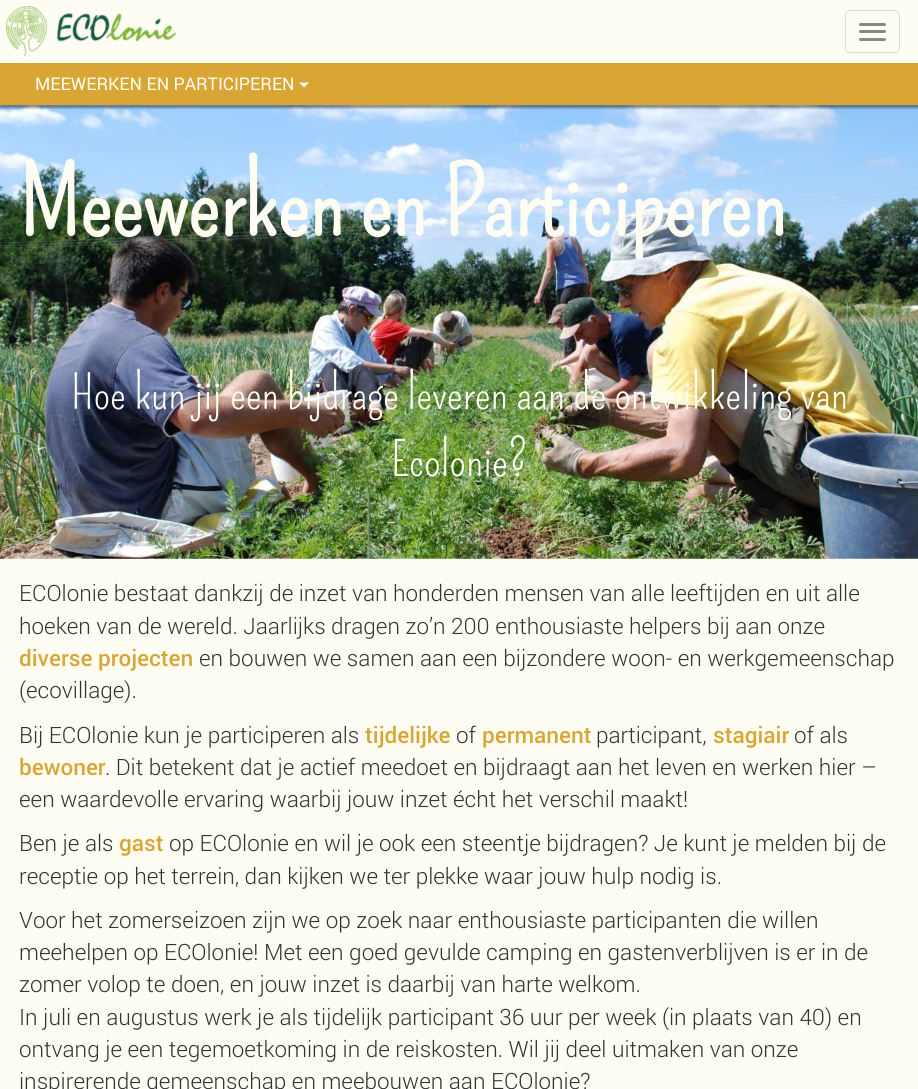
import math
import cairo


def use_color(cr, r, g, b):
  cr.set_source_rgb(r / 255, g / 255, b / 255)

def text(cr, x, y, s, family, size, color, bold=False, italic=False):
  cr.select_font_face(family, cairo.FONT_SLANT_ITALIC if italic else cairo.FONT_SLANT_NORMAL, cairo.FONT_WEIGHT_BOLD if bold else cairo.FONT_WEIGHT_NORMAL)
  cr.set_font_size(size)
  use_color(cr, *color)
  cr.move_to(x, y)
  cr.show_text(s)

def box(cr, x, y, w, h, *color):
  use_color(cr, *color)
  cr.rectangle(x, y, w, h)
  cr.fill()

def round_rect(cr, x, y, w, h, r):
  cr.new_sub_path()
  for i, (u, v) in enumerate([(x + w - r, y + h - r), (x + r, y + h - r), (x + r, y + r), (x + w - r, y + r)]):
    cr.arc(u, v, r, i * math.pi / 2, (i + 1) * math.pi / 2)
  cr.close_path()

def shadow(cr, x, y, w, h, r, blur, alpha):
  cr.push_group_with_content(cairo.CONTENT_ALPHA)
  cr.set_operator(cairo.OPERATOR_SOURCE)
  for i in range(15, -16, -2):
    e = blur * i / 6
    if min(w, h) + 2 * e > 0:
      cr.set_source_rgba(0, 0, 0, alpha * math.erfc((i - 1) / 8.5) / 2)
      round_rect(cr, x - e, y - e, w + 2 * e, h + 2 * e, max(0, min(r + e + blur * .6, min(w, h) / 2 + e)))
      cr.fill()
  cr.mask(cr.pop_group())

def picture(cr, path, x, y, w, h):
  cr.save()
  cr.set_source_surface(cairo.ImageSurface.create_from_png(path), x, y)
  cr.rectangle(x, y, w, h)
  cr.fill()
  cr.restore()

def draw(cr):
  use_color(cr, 254, 253, 243)
  cr.paint()
  picture(cr, "img_02.png", 0, 105, 918, 454)
  use_color(cr, 0, 0, 0)
  shadow(cr, 0, 3, 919, 105, 0, 1, 0.4)
  box(cr, 0, 63, 918, 42, 217, 166, 53)
  box(cr, 0, 1, 918, 62, 254, 253, 243)
  picture(cr, "img_01.png", 6, 6, 171, 51)
  round_rect(cr, 845.5, 10.5, 54, 42, 4.5)
  use_color(cr, 221, 221, 221)
  cr.set_line_width(1)
  cr.stroke()
  use_color(cr, 136, 136, 136)
  round_rect(cr, 859, 23, 27, 3, 1.5)
  cr.fill()
  round_rect(cr, 859, 30, 27, 3, 1.5)
  cr.fill()
  round_rect(cr, 859, 38, 27, 3, 1.5)
  cr.fill()
  use_color(cr, 254, 253, 243)
  cr.new_path()
  cr.move_to(299, 82.5)
  cr.line_to(309, 82.5)
  cr.line_to(304, 87.5)
  cr.close_path()
  cr.fill()
  text(cr, 35, 90, "MEEWERKEN EN PARTICIPEREN", "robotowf", 17.5, (254, 253, 243))
  text(cr, 19, 236, "Meewerken en Participeren", "Pompiere", 93.75, (254, 253, 243), bold=True)
  text(cr, 71, 409, "Hoe kun jij een bijdrage leveren aan de ontwikkeling van", "Pompiere", 46.9, (254, 253, 243))
  text(cr, 391, 476, "Ecolonie?", "Pompiere", 46.9, (254, 253, 243))
  text(cr, 19, 601, "ECOlonie bestaat dankzij de inzet van honderden mensen van alle leeftijden en uit alle", "Roboto Light", 22.5, (51, 51, 51))
  text(cr, 19, 634, "hoeken van de wereld. Jaarlijks dragen zo’n 200 enthousiaste helpers bij aan onze", "Roboto Light", 22.5, (51, 51, 51))
  text(cr, 19, 666, "diverse projecten", "Roboto Medium", 22.5, (217, 166, 53))
  text(cr, 199, 666, "en bouwen we samen aan een bijzondere woon- en werkgemeenschap", "Roboto Light", 22.5, (51, 51, 51))
  text(cr, 19, 698, "(ecovillage).", "Roboto Light", 22.5, (51, 51, 51))
  text(cr, 19, 743, "Bij ECOlonie kun je participeren als", "Roboto Light", 22.5, (51, 51, 51))
  text(cr, 365, 743, "tijdelijke", "Roboto Medium", 22.5, (217, 166, 53))
  text(cr, 456, 743, "of", "Roboto Light", 22.5, (51, 51, 51))
  text(cr, 482, 743, "permanent", "Roboto Medium", 22.5, (217, 166, 53))
  text(cr, 596, 743, "participant,", "Roboto Light", 22.5, (51, 51, 51))
  text(cr, 713, 743, "stagiair", "Roboto Medium", 22.5, (217, 166, 53))
  text(cr, 794, 743, "of als", "Roboto Light", 22.5, (51, 51, 51))
  text(cr, 19, 775, "bewoner", "Roboto Medium", 22.5, (217, 166, 53))
  text(cr, 105, 775, ". Dit betekent dat je actief meedoet en bijdraagt aan het leven en werken hier –", "Roboto Light", 22.5, (51, 51, 51))
  text(cr, 19, 807, "een waardevolle ervaring waarbij jouw inzet écht het verschil maakt!", "Roboto Light", 22.5, (51, 51, 51))
  text(cr, 19, 851, "Ben je als", "Roboto Light", 22.5, (51, 51, 51))
  text(cr, 119, 851, "gast", "Roboto Medium", 22.5, (217, 166, 53))
  text(cr, 169, 851, "op ECOlonie en wil je ook een steentje bijdragen? Je kunt je melden bij de", "Roboto Light", 22.5, (51, 51, 51))
  text(cr, 19, 884, "receptie op het terrein, dan kijken we ter plekke waar jouw hulp nodig is.", "Roboto Light", 22.5, (51, 51, 51))
  text(cr, 19, 928, "Voor het zomerseizoen zijn we op zoek naar enthousiaste participanten die willen", "Roboto Light", 22.5, (51, 51, 51))
  text(cr, 19, 960, "meehelpen op ECOlonie! Met een goed gevulde camping en gastenverblijven is er in de", "Roboto Light", 22.5, (51, 51, 51))
  text(cr, 19, 992, "zomer volop te doen, en jouw inzet is daarbij van harte welkom.", "Roboto Light", 22.5, (51, 51, 51))
  text(cr, 19, 1025, "In juli en augustus werk je als tijdelijk participant 36 uur per week (in plaats van 40) en", "Roboto Light", 22.5, (51, 51, 51))
  text(cr, 19, 1057, "ontvang je een tegemoetkoming in de reiskosten. Wil jij deel uitmaken van onze", "Roboto Light", 22.5, (51, 51, 51))
  text(cr, 19, 1089, "inspirerende gemeenschap en meebouwen aan ECOlonie?", "Roboto Light", 22.5, (51, 51, 51))


surface = cairo.ImageSurface(cairo.FORMAT_RGB24, 918, 1089)
cr = cairo.Context(surface)
options = cairo.FontOptions()
options.set_hint_metrics(cairo.HINT_METRICS_OFF)
options.set_hint_style(cairo.HINT_STYLE_NONE)
cr.set_font_options(options)
cr.set_miter_limit(4)
draw(cr)
surface.write_to_png("out.png")
